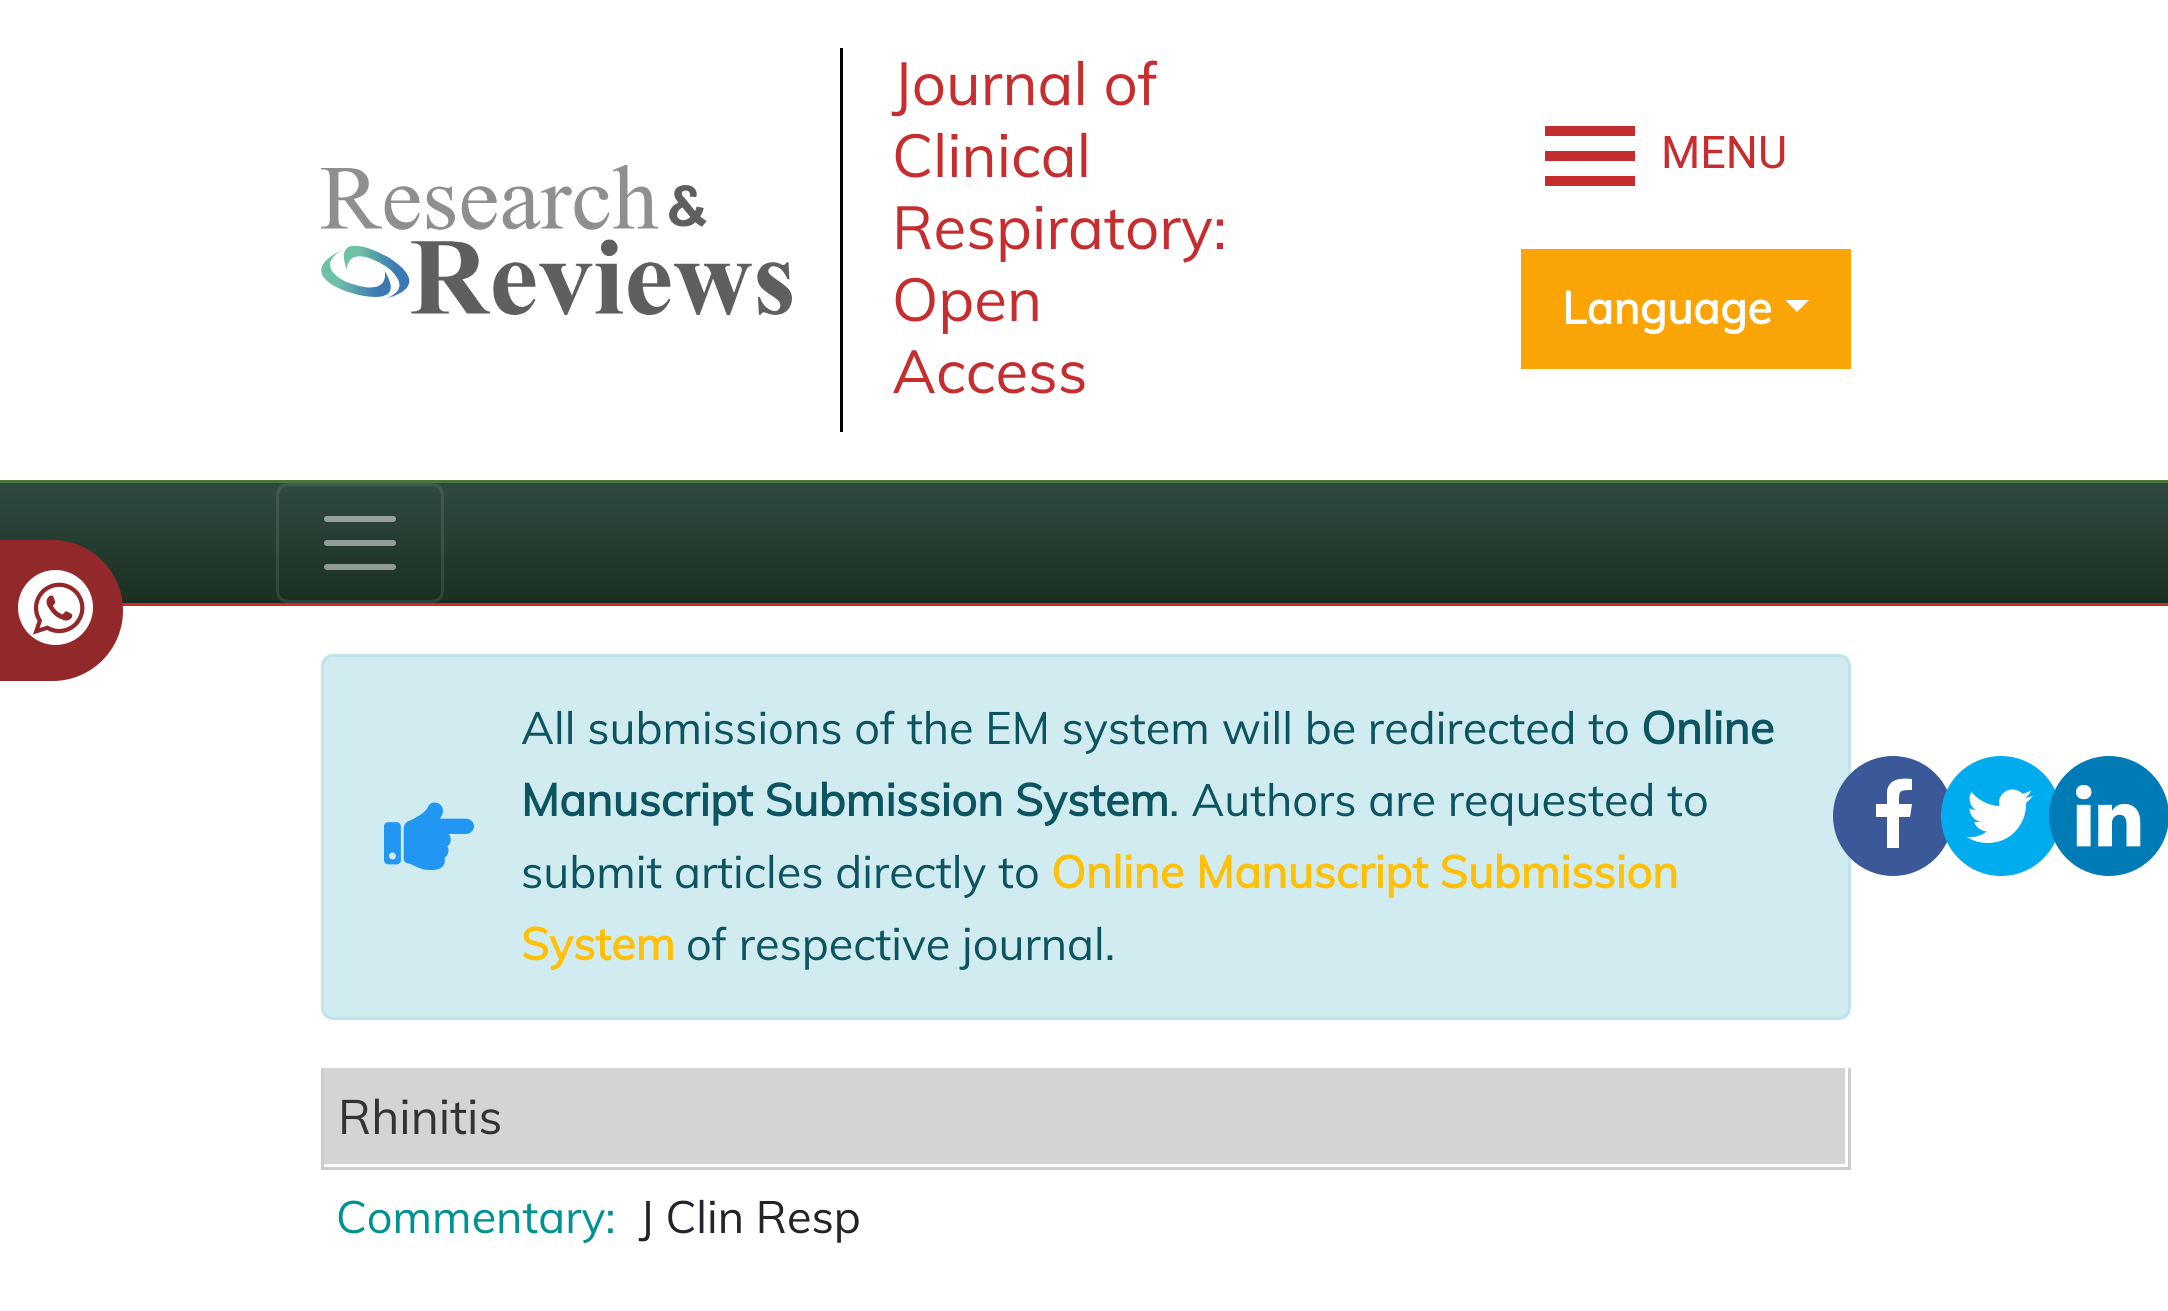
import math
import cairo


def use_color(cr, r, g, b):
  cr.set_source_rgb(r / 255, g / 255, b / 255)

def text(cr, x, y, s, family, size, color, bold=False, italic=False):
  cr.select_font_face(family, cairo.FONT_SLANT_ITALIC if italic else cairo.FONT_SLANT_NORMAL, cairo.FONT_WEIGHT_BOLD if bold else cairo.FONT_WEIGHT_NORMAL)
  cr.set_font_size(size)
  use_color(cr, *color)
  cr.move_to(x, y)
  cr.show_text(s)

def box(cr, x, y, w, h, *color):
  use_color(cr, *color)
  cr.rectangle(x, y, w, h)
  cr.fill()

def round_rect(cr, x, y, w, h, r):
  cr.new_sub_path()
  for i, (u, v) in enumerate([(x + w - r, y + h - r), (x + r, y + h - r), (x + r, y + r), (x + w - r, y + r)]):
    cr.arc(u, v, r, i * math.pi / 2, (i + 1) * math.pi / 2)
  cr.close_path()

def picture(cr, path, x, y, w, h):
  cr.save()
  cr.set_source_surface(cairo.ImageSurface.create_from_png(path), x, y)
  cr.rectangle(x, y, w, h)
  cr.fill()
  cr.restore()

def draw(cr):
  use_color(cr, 255, 255, 255)
  cr.paint()
  picture(cr, "img_01.png", 321, 165, 471, 150)
  box(cr, 840, 48, 3, 384, 0, 0, 0)
  use_color(cr, 197, 45, 47)
  cr.new_path()
  cr.move_to(1545, 186)
  cr.line_to(1635, 186)
  cr.line_to(1635, 176)
  cr.line_to(1545, 176)
  cr.close_path()
  cr.move_to(1545, 161)
  cr.line_to(1635, 161)
  cr.line_to(1635, 151)
  cr.line_to(1545, 151)
  cr.close_path()
  cr.move_to(1545, 126)
  cr.line_to(1545, 136)
  cr.line_to(1635, 136)
  cr.line_to(1635, 126)
  cr.close_path()
  cr.fill()
  box(cr, 1521, 249, 330, 120, 251, 164, 5)
  use_color(cr, 255, 255, 255)
  cr.new_path()
  cr.move_to(1785, 300)
  cr.line_to(1809, 300)
  cr.line_to(1797, 312)
  cr.close_path()
  cr.fill()
  gradient = cairo.LinearGradient(1085, 483, 1085, 603)
  gradient.add_color_stop_rgba(0, 0.188, 0.29, 0.259, 1)
  gradient.add_color_stop_rgba(1, 0.102, 0.184, 0.125, 1)
  cr.set_source(gradient)
  cr.rectangle(0, 483, 2168, 120)
  cr.fill()
  box(cr, 0, 480, 2168, 3, 70, 120, 55)
  box(cr, 122, 603, 2046, 3, 197, 45, 47)
  round_rect(cr, 277.5, 484.5, 165, 117, 10.5)
  cr.set_source_rgba(1, 1, 1, 0.1)
  cr.set_line_width(3)
  cr.stroke()
  cr.new_path()
  cr.move_to(327, 519)
  cr.line_to(393, 519)
  cr.move_to(327, 543)
  cr.line_to(393, 543)
  cr.move_to(327, 567)
  cr.line_to(393, 567)
  cr.set_source_rgba(1, 1, 1, 0.5)
  cr.set_line_width(6)
  cr.set_line_cap(cairo.LINE_CAP_ROUND)
  cr.stroke()
  use_color(cr, 146, 40, 41)
  cr.new_path()
  cr.move_to(-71, 540)
  cr.line_to(52.5, 540)
  cr.curve_to(91.5, 540, 123, 571.5, 123, 610.5)
  cr.curve_to(123, 649.5, 91.5, 681, 52.5, 681)
  cr.line_to(-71, 681)
  cr.close_path()
  cr.fill()
  use_color(cr, 255, 255, 255)
  cr.arc(55.5, 607.5, 37.5, 0, 2 * math.pi)
  cr.fill()
  picture(cr, "img_02.png", 33, 582, 52, 53)
  use_color(cr, 209, 236, 241)
  round_rect(cr, 322.5, 655.5, 1527, 363, 10.5)
  cr.fill_preserve()
  use_color(cr, 190, 229, 235)
  cr.set_line_width(3)
  cr.set_line_cap(cairo.LINE_CAP_BUTT)
  cr.stroke()
  picture(cr, "img_03.png", 384, 802, 90, 68)
  use_color(cr, 59, 89, 152)
  cr.arc(1893, 816, 60, 0, 2 * math.pi)
  cr.fill()
  use_color(cr, 255, 255, 255)
  cr.new_path()
  cr.move_to(1912, 779)
  cr.line_to(1912, 790)
  cr.curve_to(1898, 790, 1899, 791, 1899, 804)
  cr.line_to(1912, 804)
  cr.line_to(1910, 817)
  cr.line_to(1899, 817)
  cr.line_to(1899, 848)
  cr.line_to(1887, 848)
  cr.line_to(1887, 817)
  cr.line_to(1876, 817)
  cr.line_to(1876, 804)
  cr.line_to(1887, 804)
  cr.line_to(1887, 791)
  cr.curve_to(1889, 778, 1902, 778, 1912, 779)
  cr.close_path()
  cr.fill()
  use_color(cr, 0, 172, 237)
  cr.arc(2001, 816, 60, 0, 2 * math.pi)
  cr.fill()
  picture(cr, "img_04.png", 1967, 789, 66, 54)
  use_color(cr, 0, 123, 182)
  cr.arc(2109, 816, 60, 0, 2 * math.pi)
  cr.fill()
  picture(cr, "img_05.png", 2076, 784, 65, 63)
  box(cr, 324, 1068, 1521, 96, 212, 212, 212)
  box(cr, 1848, 1068, 3, 102, 204, 204, 204)
  box(cr, 321, 1167, 1530, 3, 204, 204, 204)
  box(cr, 321, 1068, 3, 102, 204, 204, 204)
  text(cr, 892, 105, "Journal of", "Muli", 60, (197, 45, 47))
  text(cr, 892, 177, "Clinical", "Muli", 60, (197, 45, 47))
  text(cr, 892, 249, "Respiratory:", "Muli", 60, (197, 45, 47))
  text(cr, 892, 321, "Open", "Muli", 60, (197, 45, 47))
  text(cr, 892, 393, "Access", "Muli", 60, (197, 45, 47))
  text(cr, 1661, 168, "MENU", "Roboto", 45, (197, 45, 47))
  text(cr, 1562, 324, "Language", "Muli", 45, (255, 255, 255), bold=True)
  text(cr, 521, 744, "All submissions of the EM system will be redirected to", "Muli", 45, (12, 84, 96))
  text(cr, 1641, 744, "Online", "Muli", 45, (12, 84, 96), bold=True)
  text(cr, 521, 816, "Manuscript Submission System", "Muli", 45, (12, 84, 96), bold=True)
  text(cr, 1169, 816, ". Authors are requested to", "Muli", 45, (12, 84, 96))
  text(cr, 521, 888, "submit articles directly to", "Muli", 45, (12, 84, 96))
  text(cr, 1051, 888, "Online Manuscript Submission", "Muli", 45, (255, 193, 7), bold=True)
  text(cr, 521, 960, "System", "Muli", 45, (255, 193, 7), bold=True)
  text(cr, 686, 960, "of respective journal.", "Muli", 45, (12, 84, 96))
  text(cr, 338, 1134, "Rhinitis", "Muli", 48, (51, 51, 51))
  text(cr, 336, 1233, "Commentary:", "Muli", 45, (0, 145, 145))
  text(cr, 639, 1233, "J Clin Resp", "Muli", 45, (33, 37, 41))


surface = cairo.ImageSurface(cairo.FORMAT_RGB24, 2168, 1311)
cr = cairo.Context(surface)
options = cairo.FontOptions()
options.set_hint_metrics(cairo.HINT_METRICS_OFF)
options.set_hint_style(cairo.HINT_STYLE_NONE)
cr.set_font_options(options)
cr.set_miter_limit(4)
draw(cr)
surface.write_to_png("out.png")
